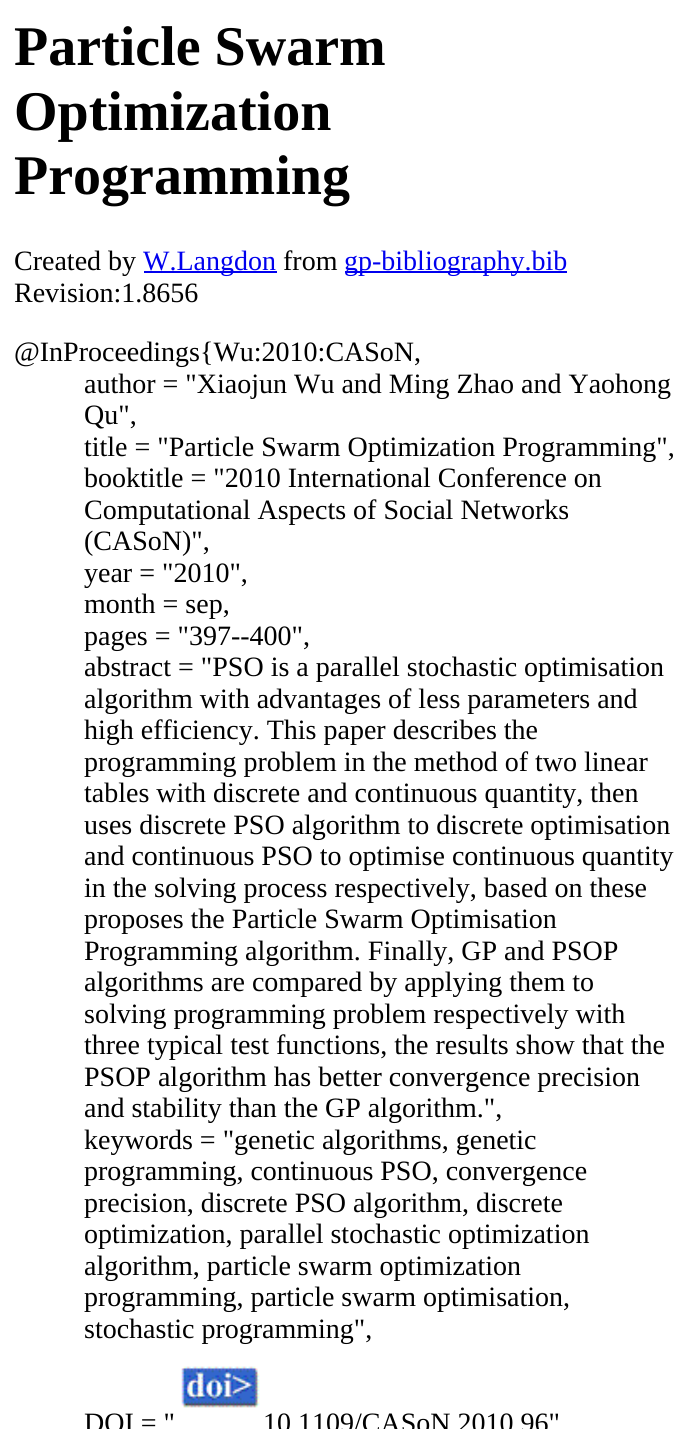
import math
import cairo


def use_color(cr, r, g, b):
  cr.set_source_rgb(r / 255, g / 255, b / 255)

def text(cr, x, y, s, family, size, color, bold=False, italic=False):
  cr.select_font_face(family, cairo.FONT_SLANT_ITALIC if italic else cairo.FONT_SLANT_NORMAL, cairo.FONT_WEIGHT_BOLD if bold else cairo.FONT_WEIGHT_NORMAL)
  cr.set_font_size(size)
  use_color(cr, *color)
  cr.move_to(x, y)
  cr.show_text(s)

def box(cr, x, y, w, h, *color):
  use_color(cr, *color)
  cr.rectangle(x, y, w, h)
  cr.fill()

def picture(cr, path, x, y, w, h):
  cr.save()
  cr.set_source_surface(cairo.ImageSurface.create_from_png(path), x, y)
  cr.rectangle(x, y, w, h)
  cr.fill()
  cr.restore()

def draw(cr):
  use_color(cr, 255, 255, 255)
  cr.paint()
  box(cr, 144, 271, 133, 2, 0, 0, 238)
  box(cr, 345, 271, 222, 2, 0, 0, 238)
  picture(cr, "img_01.png", 181, 1366, 79, 42)
  text(cr, 14, 65, "Particle Swarm", "Liberation Serif", 56, (0, 0, 0), bold=True)
  text(cr, 14, 130, "Optimization", "Liberation Serif", 56, (0, 0, 0), bold=True)
  text(cr, 14, 194, "Programming", "Liberation Serif", 56, (0, 0, 0), bold=True)
  text(cr, 14, 270, "Created by", "Liberation Serif", 28, (0, 0, 0))
  text(cr, 143, 270, "W.Langdon", "Liberation Serif", 28, (0, 0, 238))
  text(cr, 283, 270, "from", "Liberation Serif", 28, (0, 0, 0))
  text(cr, 344, 270, "gp-bibliography.bib", "Liberation Serif", 28, (0, 0, 238))
  text(cr, 14, 302, "Revision:1.8656", "Liberation Serif", 28, (0, 0, 0))
  text(cr, 14, 361, "@InProceedings{Wu:2010:CASoN,", "Liberation Serif", 28, (0, 0, 0))
  text(cr, 84, 393, "author = \"Xiaojun Wu and Ming Zhao and Yaohong", "Liberation Serif", 28, (0, 0, 0))
  text(cr, 84, 424, "Qu\",", "Liberation Serif", 28, (0, 0, 0))
  text(cr, 84, 456, "title = \"Particle Swarm Optimization Programming\",", "Liberation Serif", 28, (0, 0, 0))
  text(cr, 84, 487, "booktitle = \"2010 International Conference on", "Liberation Serif", 28, (0, 0, 0))
  text(cr, 84, 519, "Computational Aspects of Social Networks", "Liberation Serif", 28, (0, 0, 0))
  text(cr, 84, 550, "(CASoN)\",", "Liberation Serif", 28, (0, 0, 0))
  text(cr, 84, 582, "year = \"2010\",", "Liberation Serif", 28, (0, 0, 0))
  text(cr, 84, 613, "month = sep,", "Liberation Serif", 28, (0, 0, 0))
  text(cr, 84, 645, "pages = \"397--400\",", "Liberation Serif", 28, (0, 0, 0))
  text(cr, 84, 676, "abstract = \"PSO is a parallel stochastic optimisation", "Liberation Serif", 28, (0, 0, 0))
  text(cr, 84, 708, "algorithm with advantages of less parameters and", "Liberation Serif", 28, (0, 0, 0))
  text(cr, 84, 739, "high efficiency. This paper describes the", "Liberation Serif", 28, (0, 0, 0))
  text(cr, 84, 771, "programming problem in the method of two linear", "Liberation Serif", 28, (0, 0, 0))
  text(cr, 84, 802, "tables with discrete and continuous quantity, then", "Liberation Serif", 28, (0, 0, 0))
  text(cr, 84, 834, "uses discrete PSO algorithm to discrete optimisation", "Liberation Serif", 28, (0, 0, 0))
  text(cr, 84, 865, "and continuous PSO to optimise continuous quantity", "Liberation Serif", 28, (0, 0, 0))
  text(cr, 84, 897, "in the solving process respectively, based on these", "Liberation Serif", 28, (0, 0, 0))
  text(cr, 84, 928, "proposes the Particle Swarm Optimisation", "Liberation Serif", 28, (0, 0, 0))
  text(cr, 84, 960, "Programming algorithm. Finally, GP and PSOP", "Liberation Serif", 28, (0, 0, 0))
  text(cr, 84, 991, "algorithms are compared by applying them to", "Liberation Serif", 28, (0, 0, 0))
  text(cr, 84, 1023, "solving programming problem respectively with", "Liberation Serif", 28, (0, 0, 0))
  text(cr, 84, 1054, "three typical test functions, the results show that the", "Liberation Serif", 28, (0, 0, 0))
  text(cr, 84, 1086, "PSOP algorithm has better convergence precision", "Liberation Serif", 28, (0, 0, 0))
  text(cr, 84, 1117, "and stability than the GP algorithm.\",", "Liberation Serif", 28, (0, 0, 0))
  text(cr, 84, 1149, "keywords = \"genetic algorithms, genetic", "Liberation Serif", 28, (0, 0, 0))
  text(cr, 84, 1180, "programming, continuous PSO, convergence", "Liberation Serif", 28, (0, 0, 0))
  text(cr, 84, 1212, "precision, discrete PSO algorithm, discrete", "Liberation Serif", 28, (0, 0, 0))
  text(cr, 84, 1243, "optimization, parallel stochastic optimization", "Liberation Serif", 28, (0, 0, 0))
  text(cr, 84, 1275, "algorithm, particle swarm optimization", "Liberation Serif", 28, (0, 0, 0))
  text(cr, 84, 1306, "programming, particle swarm optimisation,", "Liberation Serif", 28, (0, 0, 0))
  text(cr, 84, 1338, "stochastic programming\",", "Liberation Serif", 28, (0, 0, 0))
  text(cr, 84, 1432, "DOI = \"", "Liberation Serif", 28, (0, 0, 0))
  text(cr, 263, 1432, "10.1109/CASoN.2010.96\"", "Liberation Serif", 28, (0, 0, 0))


surface = cairo.ImageSurface(cairo.FORMAT_RGB24, 691, 1429)
cr = cairo.Context(surface)
options = cairo.FontOptions()
options.set_hint_metrics(cairo.HINT_METRICS_OFF)
options.set_hint_style(cairo.HINT_STYLE_NONE)
cr.set_font_options(options)
cr.set_miter_limit(4)
draw(cr)
surface.write_to_png("out.png")
